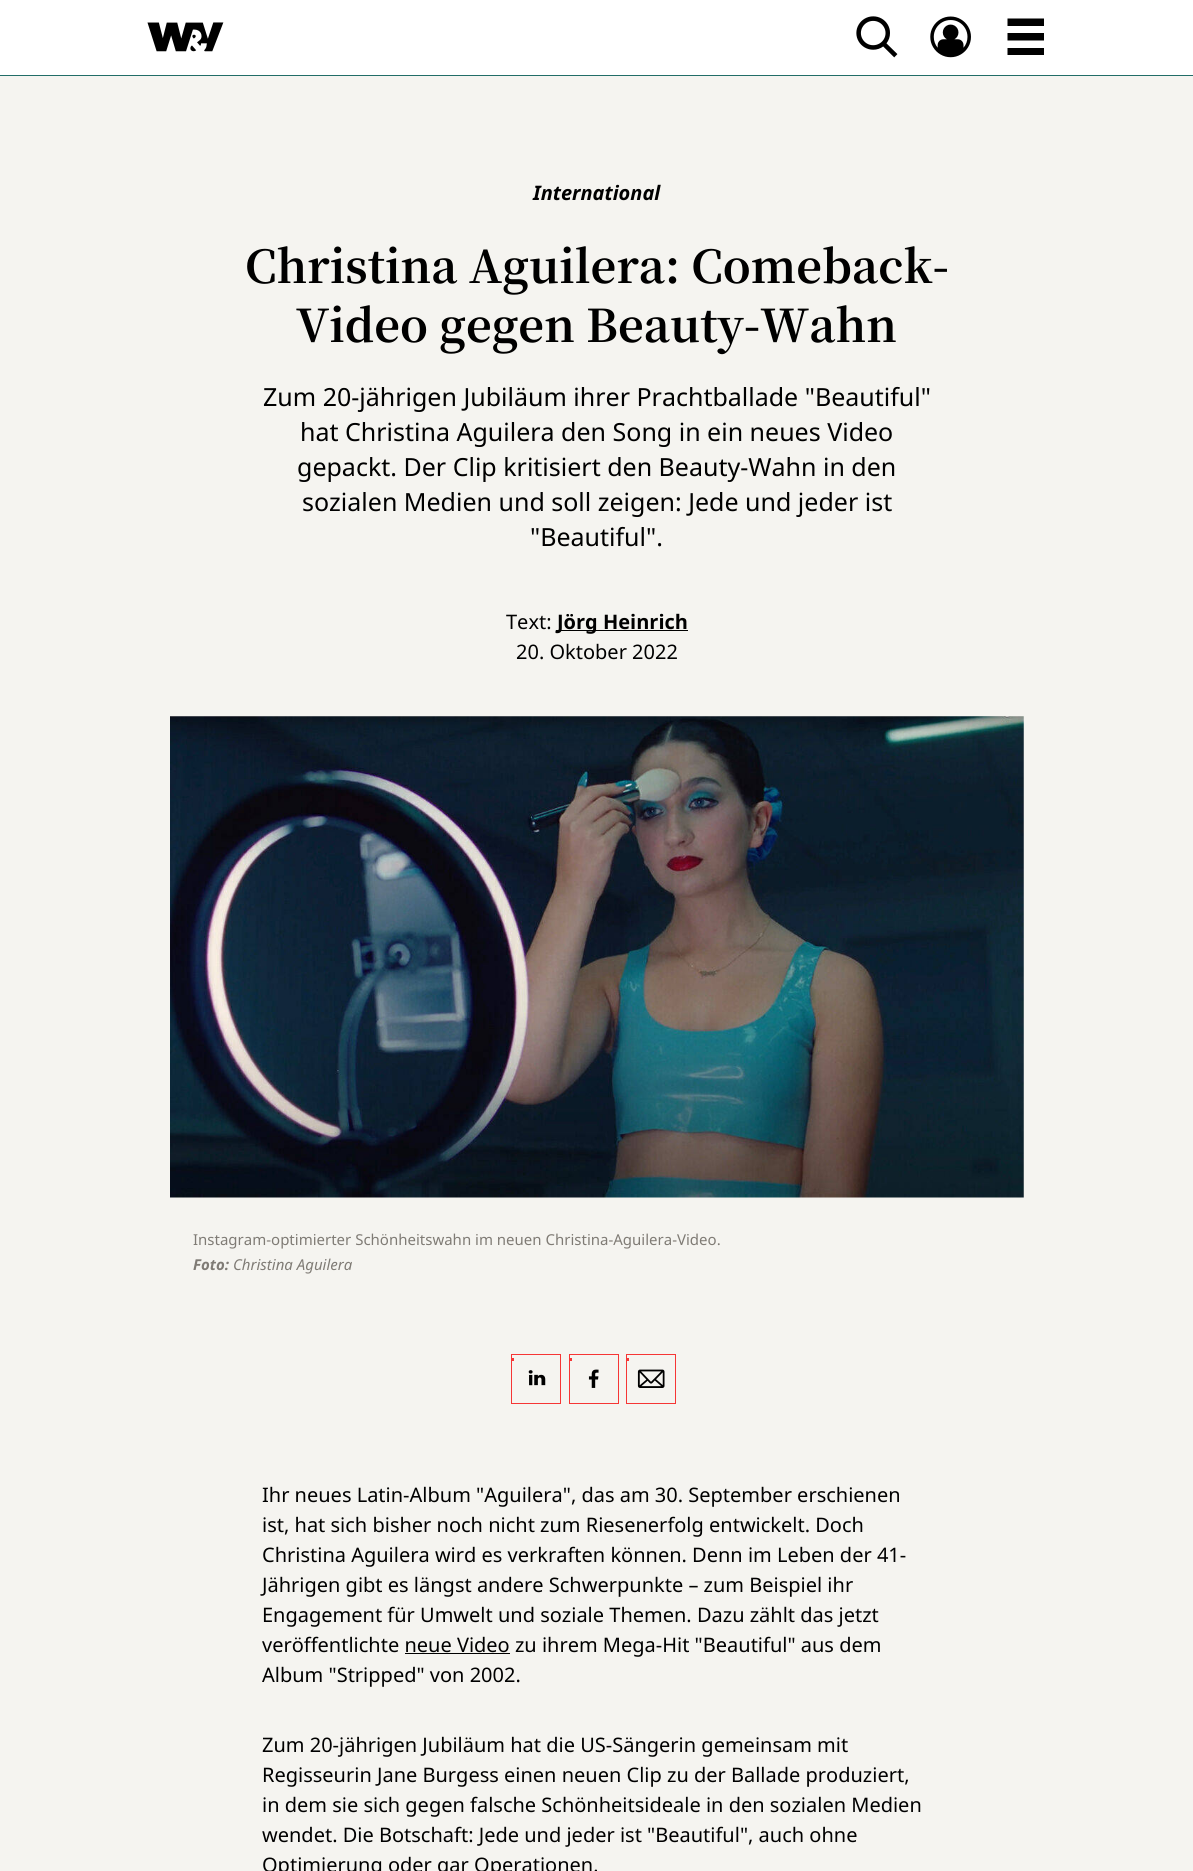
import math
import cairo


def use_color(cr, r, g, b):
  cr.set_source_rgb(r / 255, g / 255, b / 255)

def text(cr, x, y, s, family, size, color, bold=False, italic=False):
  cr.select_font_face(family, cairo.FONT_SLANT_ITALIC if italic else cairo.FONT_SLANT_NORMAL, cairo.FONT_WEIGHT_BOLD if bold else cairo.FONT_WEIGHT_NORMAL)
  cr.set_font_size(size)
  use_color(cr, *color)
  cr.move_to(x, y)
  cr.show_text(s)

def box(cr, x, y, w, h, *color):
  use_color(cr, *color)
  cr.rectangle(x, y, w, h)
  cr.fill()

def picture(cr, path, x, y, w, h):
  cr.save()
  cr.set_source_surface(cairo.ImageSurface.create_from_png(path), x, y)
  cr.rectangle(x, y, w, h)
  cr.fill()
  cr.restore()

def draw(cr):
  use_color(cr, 245, 244, 240)
  cr.paint()
  box(cr, 0, 0, 1193, 75, 255, 255, 255)
  box(cr, 0, 75, 1193, 1, 33, 109, 103)
  picture(cr, "img_01.png", 147, 22, 77, 30)
  picture(cr, "img_02.png", 856, 16, 42, 42)
  picture(cr, "img_03.png", 930, 16, 41, 42)
  use_color(cr, 0, 0, 0)
  cr.new_path()
  cr.move_to(1007.5, 26)
  cr.line_to(1044, 26)
  cr.line_to(1044, 18.5)
  cr.line_to(1007.5, 18.5)
  cr.close_path()
  cr.move_to(1007.5, 40.5)
  cr.line_to(1044, 40.5)
  cr.line_to(1044, 33)
  cr.line_to(1007.5, 33)
  cr.close_path()
  cr.move_to(1044, 48)
  cr.line_to(1007.5, 48)
  cr.line_to(1007.5, 55)
  cr.line_to(1044, 55)
  cr.close_path()
  cr.fill()
  box(cr, 556, 630, 132, 1, 0, 0, 0)
  picture(cr, "img_04.png", 170, 716, 854, 482)
  cr.rectangle(511.5, 1354.5, 49, 49)
  use_color(cr, 246, 54, 53)
  cr.set_line_width(1)
  cr.stroke()
  box(cr, 511, 1358, 3, 3, 246, 54, 53)
  picture(cr, "img_05.png", 528, 1370, 18, 16)
  cr.rectangle(569.5, 1354.5, 49, 49)
  cr.stroke()
  box(cr, 569, 1358, 3, 3, 246, 54, 53)
  picture(cr, "img_06.png", 588, 1369, 11, 19)
  cr.rectangle(626.5, 1354.5, 49, 49)
  cr.stroke()
  box(cr, 626, 1358, 3, 3, 246, 54, 53)
  picture(cr, "img_07.png", 637, 1369, 28, 19)
  box(cr, 405, 1653, 105, 1, 0, 0, 0)
  text(cr, 533, 200, "International", "Noto Sans", 20, (0, 0, 0), bold=True, italic=True)
  text(cr, 245, 283, "Christina Aguilera: Comeback-", "Noto Serif JP", 45, (0, 0, 0), bold=True)
  text(cr, 296, 342, "Video gegen Beauty-Wahn", "Noto Serif JP", 45, (0, 0, 0), bold=True)
  text(cr, 263, 406, "Zum 20-jährigen Jubiläum ihrer Prachtballade \"Beautiful\"", "Noto Sans", 25, (0, 0, 0))
  text(cr, 300, 441, "hat Christina Aguilera den Song in ein neues Video", "Noto Sans", 25, (0, 0, 0))
  text(cr, 297, 476, "gepackt. Der Clip kritisiert den Beauty-Wahn in den", "Noto Sans", 25, (0, 0, 0))
  text(cr, 302, 511, "sozialen Medien und soll zeigen: Jede und jeder ist", "Noto Sans", 25, (0, 0, 0))
  text(cr, 530, 546, "\"Beautiful\".", "Noto Sans", 25, (0, 0, 0))
  text(cr, 506, 629, "Text:", "Noto Sans", 20, (0, 0, 0))
  text(cr, 557, 629, "Jörg Heinrich", "Noto Sans", 20, (0, 0, 0), bold=True)
  text(cr, 516, 659, "20. Oktober 2022", "Noto Sans", 20, (0, 0, 0))
  text(cr, 193, 1245, "Instagram-optimierter Schönheitswahn im neuen Christina-Aguilera-Video.", "Noto Sans", 15, (127, 123, 117))
  text(cr, 193, 1270, "Foto:", "Noto Sans", 15, (127, 123, 117), bold=True, italic=True)
  text(cr, 233, 1270, "Christina Aguilera", "Noto Sans", 15, (127, 123, 117), italic=True)
  text(cr, 262, 1502, "Ihr neues Latin-Album \"Aguilera\", das am 30. September erschienen", "Noto Sans", 20, (0, 0, 0))
  text(cr, 262, 1532, "ist, hat sich bisher noch nicht zum Riesenerfolg entwickelt. Doch", "Noto Sans", 20, (0, 0, 0))
  text(cr, 262, 1562, "Christina Aguilera wird es verkraften können. Denn im Leben der 41-", "Noto Sans", 20, (0, 0, 0))
  text(cr, 262, 1592, "Jährigen gibt es längst andere Schwerpunkte – zum Beispiel ihr", "Noto Sans", 20, (0, 0, 0))
  text(cr, 262, 1622, "Engagement für Umwelt und soziale Themen. Dazu zählt das jetzt", "Noto Sans", 20, (0, 0, 0))
  text(cr, 262, 1652, "veröffentlichte neue Video zu ihrem Mega-Hit \"Beautiful\" aus dem", "Noto Sans", 20, (0, 0, 0))
  text(cr, 262, 1682, "Album \"Stripped\" von 2002.", "Noto Sans", 20, (0, 0, 0))
  text(cr, 262, 1752, "Zum 20-jährigen Jubiläum hat die US-Sängerin gemeinsam mit", "Noto Sans", 20, (0, 0, 0))
  text(cr, 262, 1782, "Regisseurin Jane Burgess einen neuen Clip zu der Ballade produziert,", "Noto Sans", 20, (0, 0, 0))
  text(cr, 262, 1812, "in dem sie sich gegen falsche Schönheitsideale in den sozialen Medien", "Noto Sans", 20, (0, 0, 0))
  text(cr, 262, 1842, "wendet. Die Botschaft: Jede und jeder ist \"Beautiful\", auch ohne", "Noto Sans", 20, (0, 0, 0))
  text(cr, 262, 1872, "Optimierung oder gar Operationen.", "Noto Sans", 20, (0, 0, 0))


surface = cairo.ImageSurface(cairo.FORMAT_RGB24, 1193, 1871)
cr = cairo.Context(surface)
options = cairo.FontOptions()
options.set_hint_metrics(cairo.HINT_METRICS_OFF)
options.set_hint_style(cairo.HINT_STYLE_NONE)
cr.set_font_options(options)
cr.set_miter_limit(4)
draw(cr)
surface.write_to_png("out.png")
